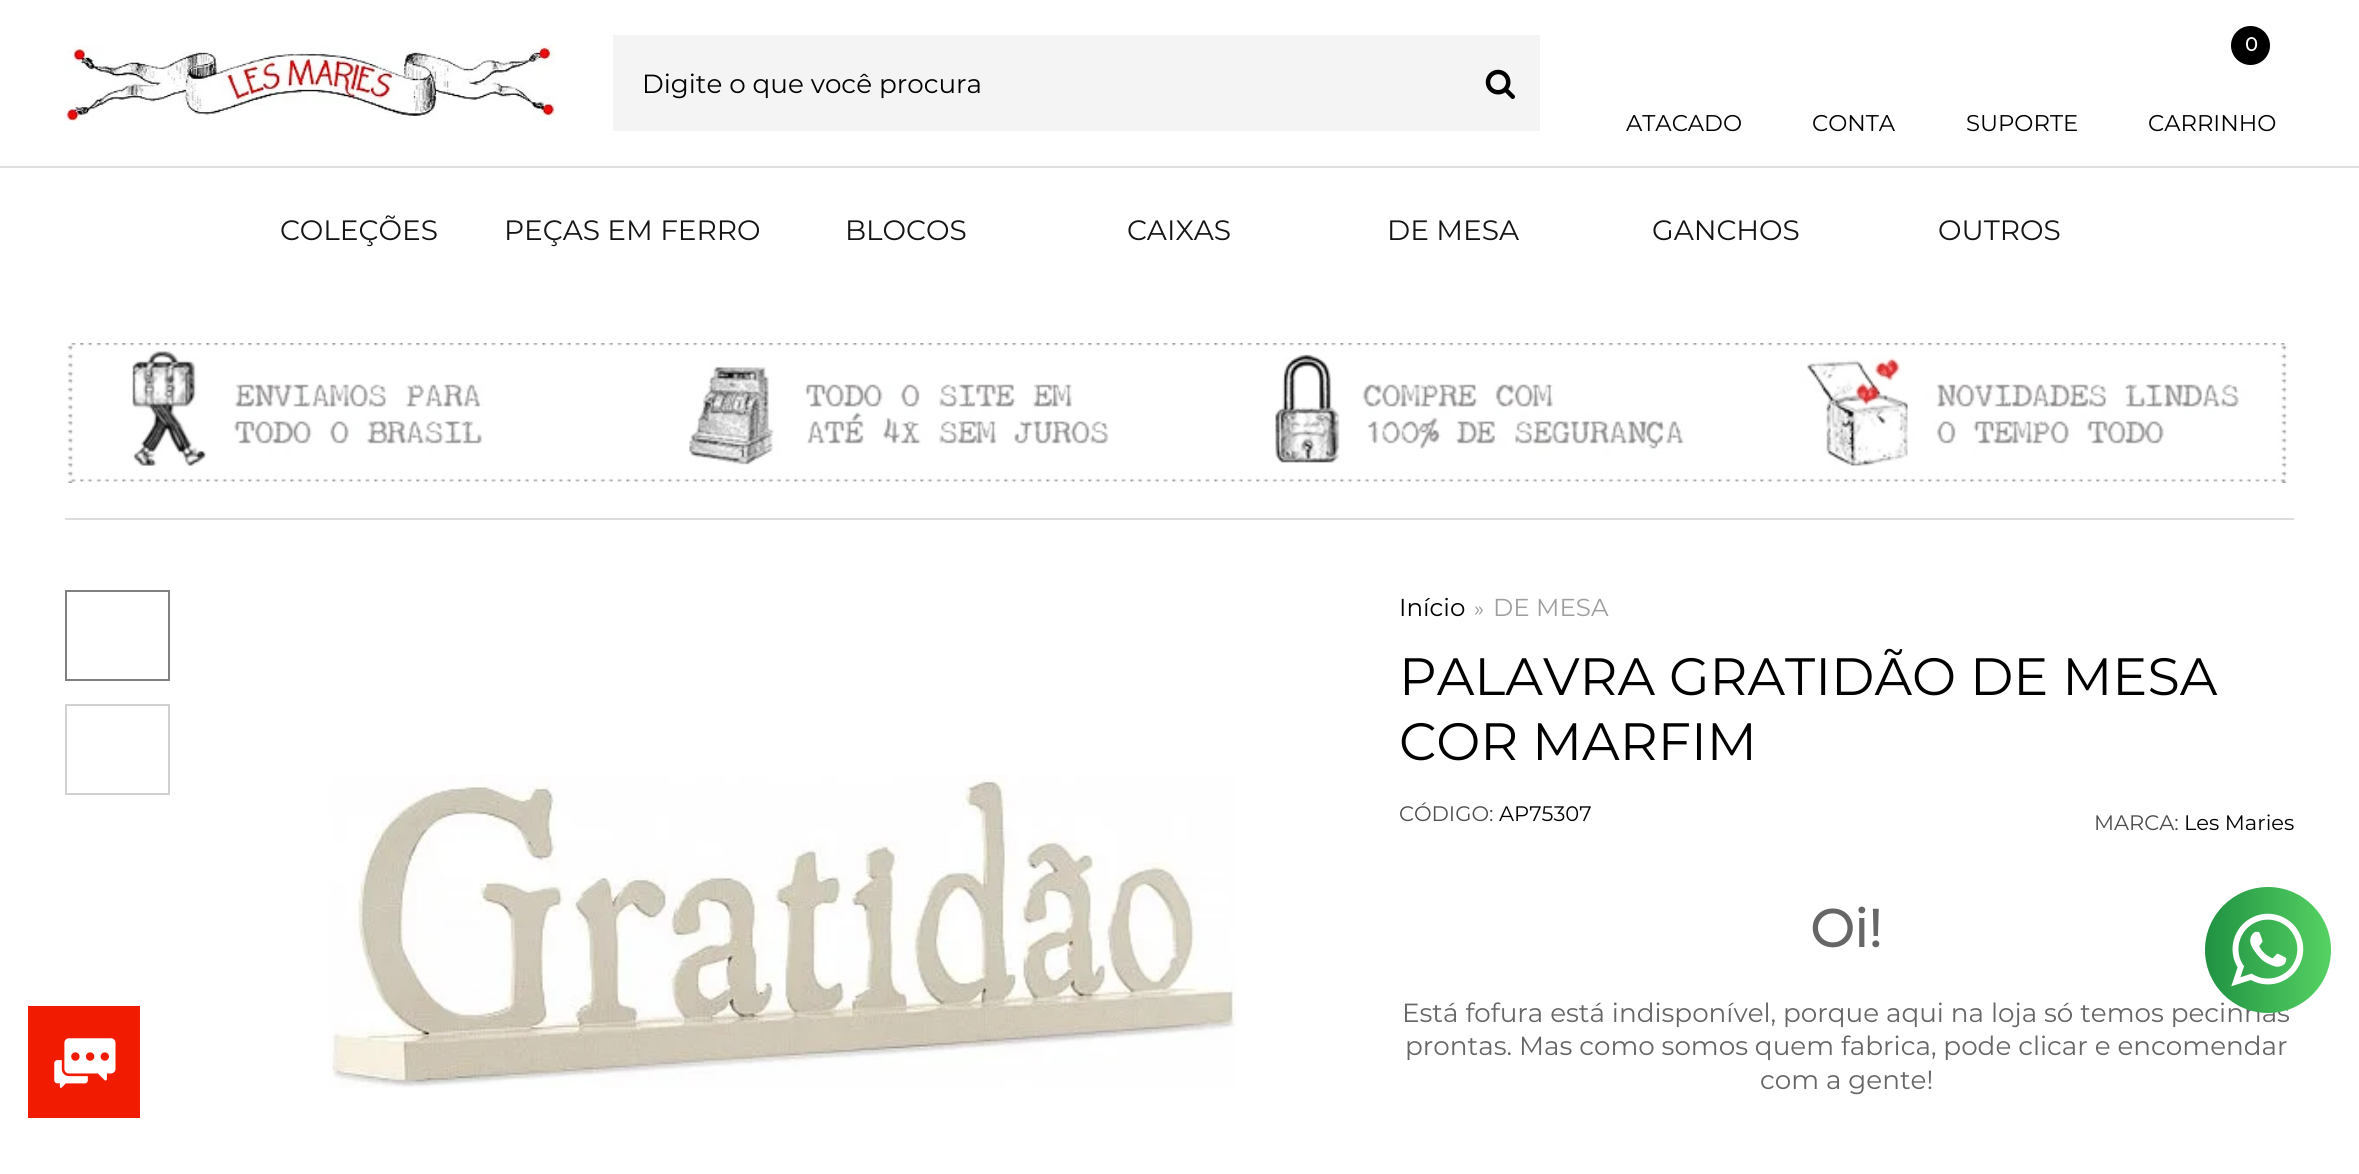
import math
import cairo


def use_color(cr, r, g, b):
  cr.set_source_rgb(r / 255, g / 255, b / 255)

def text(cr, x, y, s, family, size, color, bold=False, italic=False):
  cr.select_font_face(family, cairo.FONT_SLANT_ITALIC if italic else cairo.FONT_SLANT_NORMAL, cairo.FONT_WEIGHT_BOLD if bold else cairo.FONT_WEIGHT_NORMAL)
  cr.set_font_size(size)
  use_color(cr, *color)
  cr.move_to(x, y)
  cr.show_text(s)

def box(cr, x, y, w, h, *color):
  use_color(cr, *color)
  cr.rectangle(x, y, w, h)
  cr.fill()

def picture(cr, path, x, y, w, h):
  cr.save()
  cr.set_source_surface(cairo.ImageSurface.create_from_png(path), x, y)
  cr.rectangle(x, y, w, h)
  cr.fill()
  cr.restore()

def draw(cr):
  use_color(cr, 255, 255, 255)
  cr.paint()
  picture(cr, "img_01.png", 65, 45, 490, 76)
  box(cr, 613, 35, 927, 96, 244, 244, 244)
  picture(cr, "img_02.png", 1485, 69, 30, 30)
  use_color(cr, 0, 0, 0)
  cr.arc(2250.5, 45.5, 19.5, 0, 2 * math.pi)
  cr.fill()
  box(cr, 0, 166, 2359, 2, 224, 224, 224)
  box(cr, 65, 518, 2229, 2, 221, 221, 221)
  picture(cr, "img_03.png", 67, 343, 2221, 140)
  cr.rectangle(66, 591, 103, 89)
  use_color(cr, 128, 128, 128)
  cr.stroke()
  cr.rectangle(66, 705, 103, 89)
  use_color(cr, 209, 209, 209)
  cr.stroke()
  picture(cr, "img_04.png", 329, 774, 907, 314)
  box(cr, 28, 1006, 112, 112, 241, 27, 1)
  picture(cr, "img_06.png", 54, 1038, 62, 50)
  text(cr, 642, 93, "Digite o que você procura", "Montserrat", 26.25, (0, 0, 0))
  text(cr, 1626, 131, "ATACADO", "Montserrat", 22.75, (0, 0, 0))
  text(cr, 1812, 131, "CONTA", "Montserrat", 22.75, (0, 0, 0))
  text(cr, 1966, 131, "SUPORTE", "Montserrat", 22.75, (0, 0, 0))
  text(cr, 2245, 51, "0", "Montserrat", 19, (255, 255, 255), bold=True)
  text(cr, 2148, 131, "CARRINHO", "Montserrat", 22.75, (0, 0, 0))
  text(cr, 280, 240, "COLEÇÕES", "Montserrat", 28, (21, 21, 21))
  text(cr, 504, 240, "PEÇAS EM FERRO", "Montserrat", 28, (21, 21, 21))
  text(cr, 845, 240, "BLOCOS", "Montserrat", 28, (21, 21, 21))
  text(cr, 1127, 240, "CAIXAS", "Montserrat", 28, (21, 21, 21))
  text(cr, 1387, 240, "DE MESA", "Montserrat", 28, (21, 21, 21))
  text(cr, 1652, 240, "GANCHOS", "Montserrat", 28, (21, 21, 21))
  text(cr, 1938, 240, "OUTROS", "Montserrat", 28, (21, 21, 21))
  text(cr, 1399, 616, "Início", "Montserrat", 24.5, (0, 0, 0))
  text(cr, 1474, 616, "»", "Montserrat", 21, (153, 153, 153))
  text(cr, 1493, 616, "DE MESA", "Montserrat", 24.5, (159, 159, 159))
  text(cr, 1399, 695, "PALAVRA GRATIDÃO DE MESA", "Montserrat", 52.5, (0, 0, 0))
  text(cr, 1399, 760, "COR MARFIM", "Montserrat", 52.5, (0, 0, 0))
  text(cr, 1399, 821, "CÓDIGO:", "Montserrat", 21, (77, 77, 77))
  text(cr, 1499, 821, "AP75307", "Montserrat", 21, (0, 0, 0))
  text(cr, 2094, 830, "MARCA:", "Montserrat", 21, (77, 77, 77))
  text(cr, 2184, 830, "Les Maries", "Montserrat", 21, (0, 0, 0))
  text(cr, 1810, 947, "Oi!", "Montserrat", 52.5, (102, 102, 102), bold=True)
  text(cr, 1402, 1022, "Está fofura está indisponível, porque aqui na loja só temos pecinhas", "Montserrat", 26.25, (102, 102, 102))
  text(cr, 1405, 1055, "prontas. Mas como somos quem fabrica, pode clicar e encomendar", "Montserrat", 26.25, (102, 102, 102))
  text(cr, 1760, 1089, "com a gente!", "Montserrat", 26.25, (102, 102, 102))
  gradient = cairo.LinearGradient(2205, 950, 2331, 950)
  gradient.add_color_stop_rgba(0, 0.125, 0.569, 0.259, 1)
  gradient.add_color_stop_rgba(1, 0.337, 0.824, 0.388, 1)
  cr.set_source(gradient)
  cr.new_path()
  cr.arc(2268, 950, 63, 0, 2 * math.pi)
  cr.fill()
  picture(cr, "img_05.png", 2231, 913, 73, 74)


surface = cairo.ImageSurface(cairo.FORMAT_RGB24, 2359, 1174)
cr = cairo.Context(surface)
options = cairo.FontOptions()
options.set_hint_metrics(cairo.HINT_METRICS_OFF)
options.set_hint_style(cairo.HINT_STYLE_NONE)
cr.set_font_options(options)
cr.set_miter_limit(4)
draw(cr)
surface.write_to_png("out.png")
